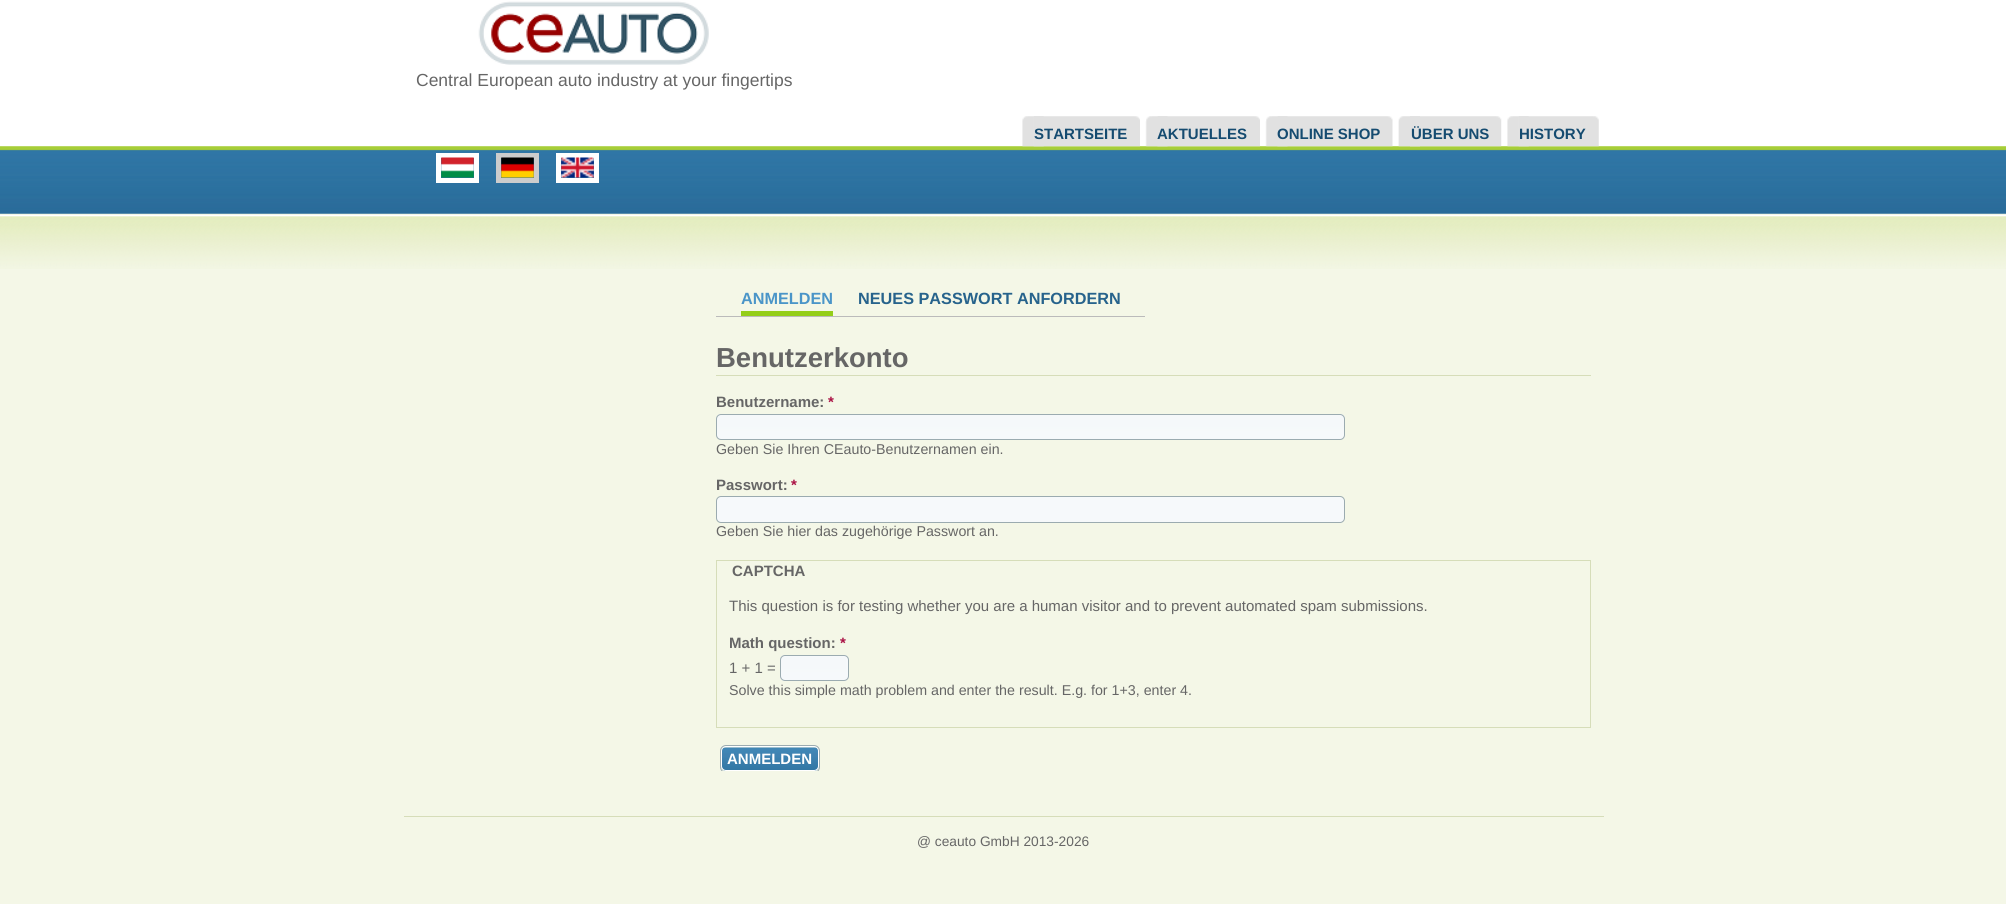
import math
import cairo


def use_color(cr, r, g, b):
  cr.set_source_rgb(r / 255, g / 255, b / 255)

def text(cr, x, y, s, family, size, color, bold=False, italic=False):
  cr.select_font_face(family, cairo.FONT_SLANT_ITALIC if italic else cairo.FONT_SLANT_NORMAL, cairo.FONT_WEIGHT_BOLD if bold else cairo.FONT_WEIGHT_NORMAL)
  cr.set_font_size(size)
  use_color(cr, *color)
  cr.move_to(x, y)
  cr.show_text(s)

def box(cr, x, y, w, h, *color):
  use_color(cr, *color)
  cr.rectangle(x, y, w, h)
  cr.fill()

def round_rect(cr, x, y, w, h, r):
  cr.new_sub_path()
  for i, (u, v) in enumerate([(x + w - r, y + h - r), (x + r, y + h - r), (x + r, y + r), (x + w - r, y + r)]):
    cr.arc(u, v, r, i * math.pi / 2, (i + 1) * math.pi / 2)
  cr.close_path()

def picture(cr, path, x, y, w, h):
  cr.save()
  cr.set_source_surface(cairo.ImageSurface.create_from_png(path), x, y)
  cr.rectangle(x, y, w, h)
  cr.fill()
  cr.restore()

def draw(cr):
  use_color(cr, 244, 247, 231)
  cr.paint()
  box(cr, 0, 0, 2006, 146, 255, 255, 255)
  picture(cr, "img_01.png", 478, 1, 231, 64)
  picture(cr, "img_14.png", 0, 146, 2006, 68)
  cr.rectangle(438.5, 155.5, 38, 25)
  cr.set_line_width(5)
  cr.stroke()
  picture(cr, "img_02.png", 441, 157, 33, 21)
  cr.rectangle(498.5, 155.5, 38, 25)
  use_color(cr, 204, 204, 204)
  cr.stroke()
  picture(cr, "img_03.png", 501, 157, 33, 21)
  cr.rectangle(558.5, 155.5, 38, 25)
  use_color(cr, 255, 255, 255)
  cr.stroke()
  picture(cr, "img_04.png", 561, 157, 33, 21)
  picture(cr, "img_05.png", 1022, 116, 22, 31)
  picture(cr, "img_06.png", 1033, 116, 107, 31)
  picture(cr, "img_07.png", 1145, 116, 23, 31)
  picture(cr, "img_08.png", 1157, 116, 103, 31)
  picture(cr, "img_09.png", 1265, 116, 23, 31)
  picture(cr, "img_10.png", 1277, 116, 116, 31)
  picture(cr, "img_11.png", 1398, 116, 22, 31)
  picture(cr, "img_12.png", 1410, 116, 92, 31)
  picture(cr, "img_05.png", 1507, 116, 22, 31)
  picture(cr, "img_13.png", 1518, 116, 81, 31)
  picture(cr, "img_15.png", 0, 215, 2006, 54)
  box(cr, 716, 316, 429, 1, 187, 187, 187)
  box(cr, 741, 311, 92, 5, 148, 206, 24)
  box(cr, 716, 375, 875, 1, 214, 221, 185)
  picture(cr, "img_16.png", 717, 414, 628, 25)
  round_rect(cr, 716.5, 414.5, 628, 25, 4.5)
  use_color(cr, 155, 171, 176)
  cr.set_line_width(1)
  cr.stroke()
  use_color(cr, 246, 249, 251)
  round_rect(cr, 716.5, 496.5, 628, 26, 4.5)
  cr.fill_preserve()
  use_color(cr, 155, 171, 176)
  cr.stroke()
  cr.rectangle(716.5, 560.5, 874, 167)
  use_color(cr, 214, 221, 185)
  cr.stroke()
  use_color(cr, 246, 249, 251)
  round_rect(cr, 780, 655, 69, 26, 5)
  cr.fill()
  picture(cr, "img_17.png", 780, 655, 66, 26)
  round_rect(cr, 780.5, 655.5, 68, 25, 4.5)
  use_color(cr, 155, 171, 176)
  cr.stroke()
  picture(cr, "img_18.png", 721, 747, 98, 24)
  round_rect(cr, 721.5, 746.5, 97, 24, 4.5)
  use_color(cr, 255, 255, 255)
  cr.stroke()
  cr.save()
  cr.rectangle(704, 343, 900, 428)
  cr.clip()
  round_rect(cr, 720.5, 745.5, 99, 27, 5.5)
  use_color(cr, 155, 171, 176)
  cr.stroke()
  cr.restore()
  box(cr, 404, 816, 1200, 1, 214, 221, 185)
  text(cr, 416, 86, "Central European auto industry at your fingertips", "Liberation Sans", 17.5, (102, 102, 102))
  text(cr, 1034, 139, "STARTSEITE", "Liberation Sans", 15, (21, 75, 112), bold=True)
  text(cr, 1157, 139, "AKTUELLES", "Liberation Sans", 15, (21, 75, 112), bold=True)
  text(cr, 1277, 139, "ONLINE SHOP", "Liberation Sans", 15, (21, 75, 112), bold=True)
  text(cr, 1411, 139, "ÜBER UNS", "Liberation Sans", 15, (21, 75, 112), bold=True)
  text(cr, 1519, 139, "HISTORY", "Liberation Sans", 15, (21, 75, 112), bold=True)
  text(cr, 741, 304, "ANMELDEN", "Liberation Sans", 16.25, (74, 149, 200), bold=True)
  text(cr, 858, 304, "NEUES PASSWORT ANFORDERN", "Liberation Sans", 16.25, (39, 99, 140), bold=True)
  text(cr, 716, 367, "Benutzerkonto", "Liberation Sans", 27.5, (102, 102, 102), bold=True)
  text(cr, 716, 407, "Benutzername:", "Liberation Sans", 15, (102, 102, 102), bold=True)
  text(cr, 828, 407, "*", "Liberation Sans", 15, (170, 17, 68), bold=True)
  text(cr, 716, 454, "Geben Sie Ihren CEauto-Benutzernamen ein.", "Liberation Sans", 14.25, (102, 102, 102))
  text(cr, 716, 490, "Passwort:", "Liberation Sans", 15, (102, 102, 102), bold=True)
  text(cr, 791, 490, "*", "Liberation Sans", 15, (170, 17, 68), bold=True)
  text(cr, 716, 536, "Geben Sie hier das zugehörige Passwort an.", "Liberation Sans", 14.25, (102, 102, 102))
  text(cr, 732, 576, "CAPTCHA", "Liberation Sans", 15, (102, 102, 102), bold=True)
  text(cr, 729, 611, "This question is for testing whether you are a human visitor and to prevent automated spam submissions.", "Liberation Sans", 15, (102, 102, 102))
  text(cr, 729, 648, "Math question:", "Liberation Sans", 15, (102, 102, 102), bold=True)
  text(cr, 840, 648, "*", "Liberation Sans", 15, (170, 17, 68), bold=True)
  text(cr, 729, 673, "1 + 1 =", "Liberation Sans", 15, (102, 102, 102))
  text(cr, 729, 695, "Solve this simple math problem and enter the result. E.g. for 1+3, enter 4.", "Liberation Sans", 14.25, (102, 102, 102))
  text(cr, 727, 764, "ANMELDEN", "Liberation Sans", 15, (255, 255, 255), bold=True)
  text(cr, 917, 846, "@ ceauto GmbH 2013-2026", "Liberation Sans", 13.75, (102, 102, 102))


surface = cairo.ImageSurface(cairo.FORMAT_RGB24, 2006, 904)
cr = cairo.Context(surface)
options = cairo.FontOptions()
options.set_hint_metrics(cairo.HINT_METRICS_OFF)
options.set_hint_style(cairo.HINT_STYLE_NONE)
cr.set_font_options(options)
cr.set_miter_limit(4)
draw(cr)
surface.write_to_png("out.png")
